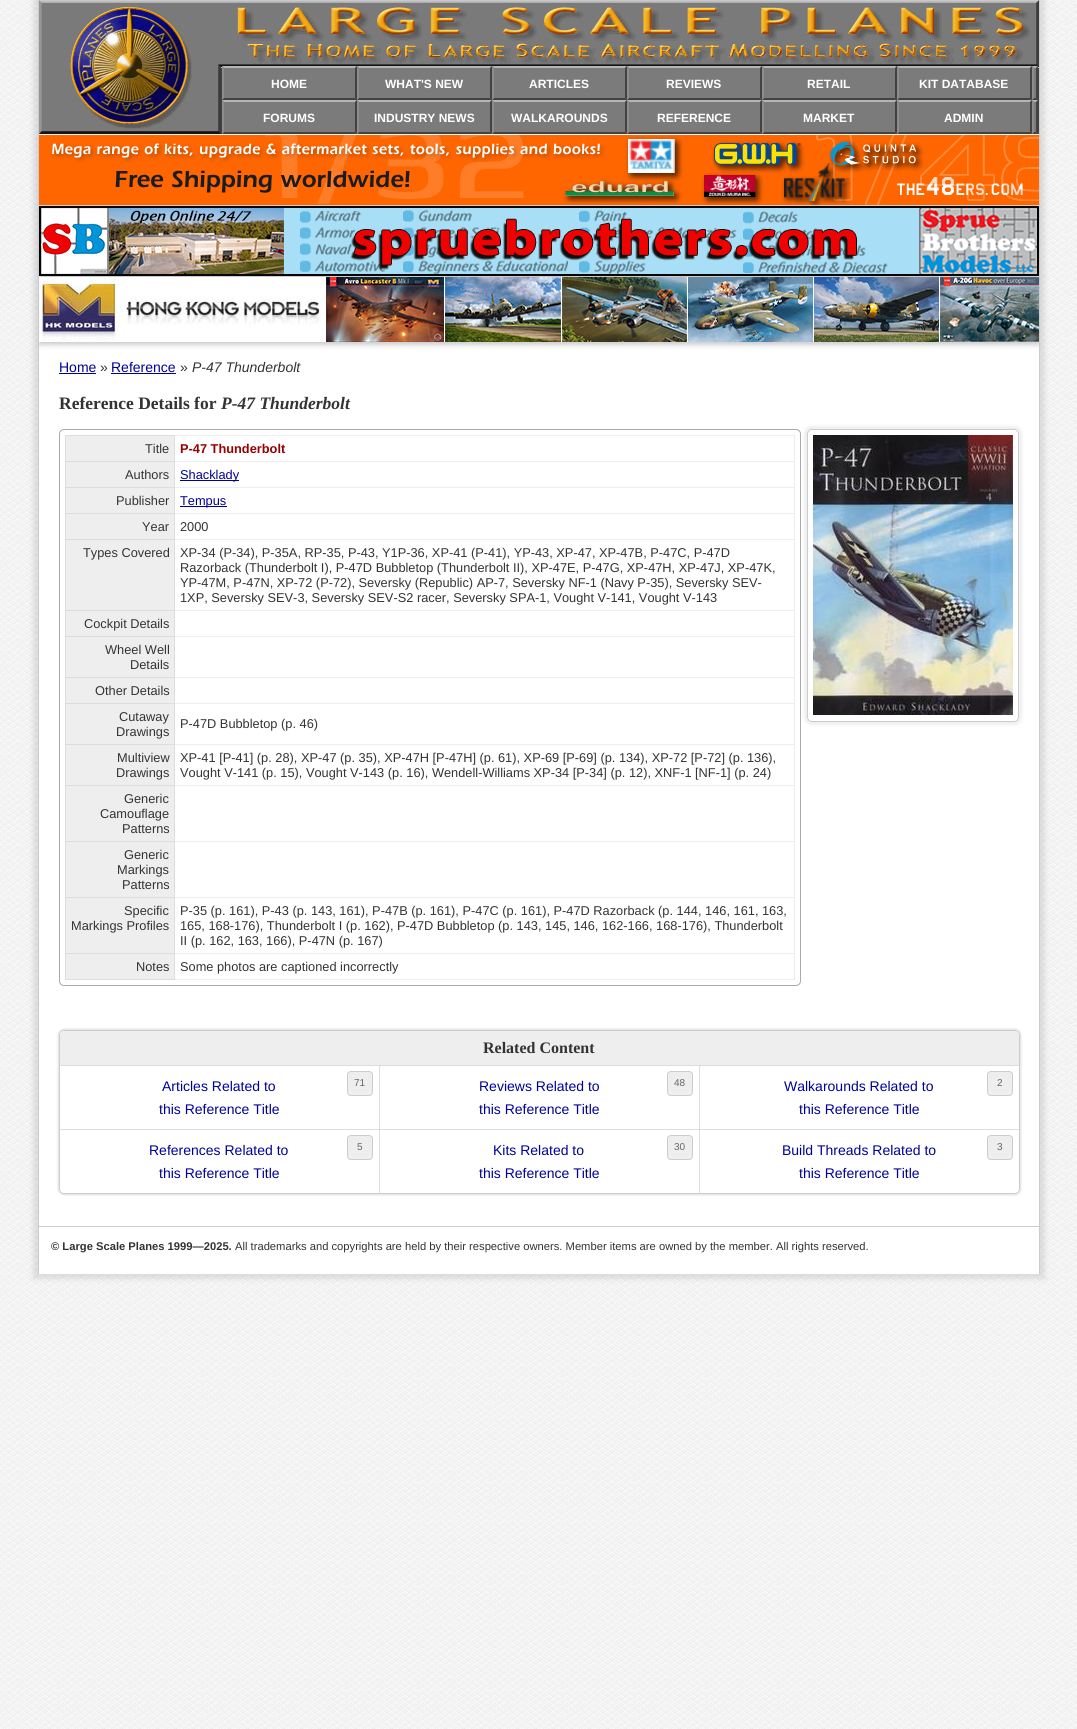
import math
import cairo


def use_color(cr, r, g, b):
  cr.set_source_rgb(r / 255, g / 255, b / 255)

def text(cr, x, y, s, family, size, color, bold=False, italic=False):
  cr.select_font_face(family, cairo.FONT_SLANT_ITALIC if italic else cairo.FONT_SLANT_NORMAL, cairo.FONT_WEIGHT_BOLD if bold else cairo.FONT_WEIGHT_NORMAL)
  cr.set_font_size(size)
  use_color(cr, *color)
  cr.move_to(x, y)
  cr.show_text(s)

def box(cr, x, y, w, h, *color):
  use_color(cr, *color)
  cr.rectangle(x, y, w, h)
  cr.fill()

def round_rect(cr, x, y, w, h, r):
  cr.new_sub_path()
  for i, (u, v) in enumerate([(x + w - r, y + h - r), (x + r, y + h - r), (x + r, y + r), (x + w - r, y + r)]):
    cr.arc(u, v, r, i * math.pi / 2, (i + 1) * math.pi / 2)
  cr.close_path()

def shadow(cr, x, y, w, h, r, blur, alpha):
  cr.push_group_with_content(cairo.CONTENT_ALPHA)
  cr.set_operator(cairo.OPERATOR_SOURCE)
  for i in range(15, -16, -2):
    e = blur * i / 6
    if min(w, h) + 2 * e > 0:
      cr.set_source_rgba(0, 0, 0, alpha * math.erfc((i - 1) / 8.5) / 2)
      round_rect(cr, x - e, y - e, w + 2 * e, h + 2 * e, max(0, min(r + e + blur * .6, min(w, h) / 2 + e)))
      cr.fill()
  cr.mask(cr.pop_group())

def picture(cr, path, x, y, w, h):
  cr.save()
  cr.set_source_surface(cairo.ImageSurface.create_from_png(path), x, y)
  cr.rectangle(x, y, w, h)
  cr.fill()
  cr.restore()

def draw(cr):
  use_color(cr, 255, 255, 255)
  cr.paint()
  picture(cr, "img_01.png", 0, 0, 1077, 1729)
  use_color(cr, 0, 0, 0)
  shadow(cr, 33, -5, 1012, 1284, 0, 2.5, 0.1)
  box(cr, 39, 134, 1000, 1140, 255, 255, 255)
  box(cr, 1039, 0, 1, 1274, 204, 204, 204)
  box(cr, 38, 0, 1, 1274, 204, 204, 204)
  box(cr, 221, 68, 818, 66, 66, 66, 66)
  use_color(cr, 204, 204, 204)
  shadow(cr, 39, 138, 1000, 207, 0, 2.5, 1)
  picture(cr, "img_02.png", 39, 0, 1000, 134)
  box(cr, 222, 66, 816, 34, 123, 123, 123)
  use_color(cr, 181, 181, 181)
  cr.new_path()
  cr.move_to(222, 66)
  cr.line_to(357, 66)
  cr.line_to(355, 68)
  cr.line_to(224, 68)
  cr.close_path()
  cr.fill()
  use_color(cr, 66, 66, 66)
  cr.new_path()
  cr.move_to(357, 66)
  cr.line_to(357, 100)
  cr.line_to(355, 98)
  cr.line_to(355, 68)
  cr.close_path()
  cr.fill()
  cr.new_path()
  cr.move_to(357, 100)
  cr.line_to(222, 100)
  cr.line_to(224, 98)
  cr.line_to(355, 98)
  cr.close_path()
  cr.fill()
  use_color(cr, 141, 141, 141)
  cr.new_path()
  cr.move_to(222, 100)
  cr.line_to(222, 66)
  cr.line_to(224, 68)
  cr.line_to(224, 98)
  cr.close_path()
  cr.fill()
  use_color(cr, 181, 181, 181)
  cr.new_path()
  cr.move_to(357, 66)
  cr.line_to(492, 66)
  cr.line_to(490, 68)
  cr.line_to(359, 68)
  cr.close_path()
  cr.fill()
  use_color(cr, 66, 66, 66)
  cr.new_path()
  cr.move_to(492, 66)
  cr.line_to(492, 100)
  cr.line_to(490, 98)
  cr.line_to(490, 68)
  cr.close_path()
  cr.fill()
  cr.new_path()
  cr.move_to(492, 100)
  cr.line_to(357, 100)
  cr.line_to(359, 98)
  cr.line_to(490, 98)
  cr.close_path()
  cr.fill()
  use_color(cr, 141, 141, 141)
  cr.new_path()
  cr.move_to(357, 100)
  cr.line_to(357, 66)
  cr.line_to(359, 68)
  cr.line_to(359, 98)
  cr.close_path()
  cr.fill()
  use_color(cr, 181, 181, 181)
  cr.new_path()
  cr.move_to(492, 66)
  cr.line_to(627, 66)
  cr.line_to(625, 68)
  cr.line_to(494, 68)
  cr.close_path()
  cr.fill()
  use_color(cr, 66, 66, 66)
  cr.new_path()
  cr.move_to(627, 66)
  cr.line_to(627, 100)
  cr.line_to(625, 98)
  cr.line_to(625, 68)
  cr.close_path()
  cr.fill()
  cr.new_path()
  cr.move_to(627, 100)
  cr.line_to(492, 100)
  cr.line_to(494, 98)
  cr.line_to(625, 98)
  cr.close_path()
  cr.fill()
  use_color(cr, 141, 141, 141)
  cr.new_path()
  cr.move_to(492, 100)
  cr.line_to(492, 66)
  cr.line_to(494, 68)
  cr.line_to(494, 98)
  cr.close_path()
  cr.fill()
  use_color(cr, 181, 181, 181)
  cr.new_path()
  cr.move_to(627, 66)
  cr.line_to(762, 66)
  cr.line_to(760, 68)
  cr.line_to(629, 68)
  cr.close_path()
  cr.fill()
  use_color(cr, 66, 66, 66)
  cr.new_path()
  cr.move_to(762, 66)
  cr.line_to(762, 100)
  cr.line_to(760, 98)
  cr.line_to(760, 68)
  cr.close_path()
  cr.fill()
  cr.new_path()
  cr.move_to(762, 100)
  cr.line_to(627, 100)
  cr.line_to(629, 98)
  cr.line_to(760, 98)
  cr.close_path()
  cr.fill()
  use_color(cr, 141, 141, 141)
  cr.new_path()
  cr.move_to(627, 100)
  cr.line_to(627, 66)
  cr.line_to(629, 68)
  cr.line_to(629, 98)
  cr.close_path()
  cr.fill()
  use_color(cr, 181, 181, 181)
  cr.new_path()
  cr.move_to(762, 66)
  cr.line_to(897, 66)
  cr.line_to(895, 68)
  cr.line_to(764, 68)
  cr.close_path()
  cr.fill()
  use_color(cr, 66, 66, 66)
  cr.new_path()
  cr.move_to(897, 66)
  cr.line_to(897, 100)
  cr.line_to(895, 98)
  cr.line_to(895, 68)
  cr.close_path()
  cr.fill()
  cr.new_path()
  cr.move_to(897, 100)
  cr.line_to(762, 100)
  cr.line_to(764, 98)
  cr.line_to(895, 98)
  cr.close_path()
  cr.fill()
  use_color(cr, 141, 141, 141)
  cr.new_path()
  cr.move_to(762, 100)
  cr.line_to(762, 66)
  cr.line_to(764, 68)
  cr.line_to(764, 98)
  cr.close_path()
  cr.fill()
  use_color(cr, 181, 181, 181)
  cr.new_path()
  cr.move_to(897, 66)
  cr.line_to(1032, 66)
  cr.line_to(1030, 68)
  cr.line_to(899, 68)
  cr.close_path()
  cr.fill()
  use_color(cr, 66, 66, 66)
  cr.new_path()
  cr.move_to(1032, 66)
  cr.line_to(1032, 100)
  cr.line_to(1030, 98)
  cr.line_to(1030, 68)
  cr.close_path()
  cr.fill()
  cr.new_path()
  cr.move_to(1032, 100)
  cr.line_to(897, 100)
  cr.line_to(899, 98)
  cr.line_to(1030, 98)
  cr.close_path()
  cr.fill()
  use_color(cr, 141, 141, 141)
  cr.new_path()
  cr.move_to(897, 100)
  cr.line_to(897, 66)
  cr.line_to(899, 68)
  cr.line_to(899, 98)
  cr.close_path()
  cr.fill()
  use_color(cr, 181, 181, 181)
  cr.new_path()
  cr.move_to(1032, 66)
  cr.line_to(1038, 66)
  cr.line_to(1036, 68)
  cr.line_to(1034, 68)
  cr.close_path()
  cr.fill()
  use_color(cr, 66, 66, 66)
  cr.new_path()
  cr.move_to(1038, 66)
  cr.line_to(1038, 100)
  cr.line_to(1036, 98)
  cr.line_to(1036, 68)
  cr.close_path()
  cr.fill()
  cr.new_path()
  cr.move_to(1038, 100)
  cr.line_to(1032, 100)
  cr.line_to(1034, 98)
  cr.line_to(1036, 98)
  cr.close_path()
  cr.fill()
  use_color(cr, 141, 141, 141)
  cr.new_path()
  cr.move_to(1032, 100)
  cr.line_to(1032, 66)
  cr.line_to(1034, 68)
  cr.line_to(1034, 98)
  cr.close_path()
  cr.fill()
  box(cr, 222, 100, 816, 34, 123, 123, 123)
  use_color(cr, 181, 181, 181)
  cr.new_path()
  cr.move_to(222, 100)
  cr.line_to(357, 100)
  cr.line_to(355, 102)
  cr.line_to(224, 102)
  cr.close_path()
  cr.fill()
  use_color(cr, 66, 66, 66)
  cr.new_path()
  cr.move_to(357, 100)
  cr.line_to(357, 134)
  cr.line_to(355, 132)
  cr.line_to(355, 102)
  cr.close_path()
  cr.fill()
  cr.new_path()
  cr.move_to(357, 134)
  cr.line_to(222, 134)
  cr.line_to(224, 132)
  cr.line_to(355, 132)
  cr.close_path()
  cr.fill()
  use_color(cr, 141, 141, 141)
  cr.new_path()
  cr.move_to(222, 134)
  cr.line_to(222, 100)
  cr.line_to(224, 102)
  cr.line_to(224, 132)
  cr.close_path()
  cr.fill()
  use_color(cr, 181, 181, 181)
  cr.new_path()
  cr.move_to(357, 100)
  cr.line_to(492, 100)
  cr.line_to(490, 102)
  cr.line_to(359, 102)
  cr.close_path()
  cr.fill()
  use_color(cr, 66, 66, 66)
  cr.new_path()
  cr.move_to(492, 100)
  cr.line_to(492, 134)
  cr.line_to(490, 132)
  cr.line_to(490, 102)
  cr.close_path()
  cr.fill()
  cr.new_path()
  cr.move_to(492, 134)
  cr.line_to(357, 134)
  cr.line_to(359, 132)
  cr.line_to(490, 132)
  cr.close_path()
  cr.fill()
  use_color(cr, 141, 141, 141)
  cr.new_path()
  cr.move_to(357, 134)
  cr.line_to(357, 100)
  cr.line_to(359, 102)
  cr.line_to(359, 132)
  cr.close_path()
  cr.fill()
  use_color(cr, 181, 181, 181)
  cr.new_path()
  cr.move_to(492, 100)
  cr.line_to(627, 100)
  cr.line_to(625, 102)
  cr.line_to(494, 102)
  cr.close_path()
  cr.fill()
  use_color(cr, 66, 66, 66)
  cr.new_path()
  cr.move_to(627, 100)
  cr.line_to(627, 134)
  cr.line_to(625, 132)
  cr.line_to(625, 102)
  cr.close_path()
  cr.fill()
  cr.new_path()
  cr.move_to(627, 134)
  cr.line_to(492, 134)
  cr.line_to(494, 132)
  cr.line_to(625, 132)
  cr.close_path()
  cr.fill()
  use_color(cr, 141, 141, 141)
  cr.new_path()
  cr.move_to(492, 134)
  cr.line_to(492, 100)
  cr.line_to(494, 102)
  cr.line_to(494, 132)
  cr.close_path()
  cr.fill()
  use_color(cr, 181, 181, 181)
  cr.new_path()
  cr.move_to(627, 100)
  cr.line_to(762, 100)
  cr.line_to(760, 102)
  cr.line_to(629, 102)
  cr.close_path()
  cr.fill()
  use_color(cr, 66, 66, 66)
  cr.new_path()
  cr.move_to(762, 100)
  cr.line_to(762, 134)
  cr.line_to(760, 132)
  cr.line_to(760, 102)
  cr.close_path()
  cr.fill()
  cr.new_path()
  cr.move_to(762, 134)
  cr.line_to(627, 134)
  cr.line_to(629, 132)
  cr.line_to(760, 132)
  cr.close_path()
  cr.fill()
  use_color(cr, 141, 141, 141)
  cr.new_path()
  cr.move_to(627, 134)
  cr.line_to(627, 100)
  cr.line_to(629, 102)
  cr.line_to(629, 132)
  cr.close_path()
  cr.fill()
  use_color(cr, 181, 181, 181)
  cr.new_path()
  cr.move_to(762, 100)
  cr.line_to(897, 100)
  cr.line_to(895, 102)
  cr.line_to(764, 102)
  cr.close_path()
  cr.fill()
  use_color(cr, 66, 66, 66)
  cr.new_path()
  cr.move_to(897, 100)
  cr.line_to(897, 134)
  cr.line_to(895, 132)
  cr.line_to(895, 102)
  cr.close_path()
  cr.fill()
  cr.new_path()
  cr.move_to(897, 134)
  cr.line_to(762, 134)
  cr.line_to(764, 132)
  cr.line_to(895, 132)
  cr.close_path()
  cr.fill()
  use_color(cr, 141, 141, 141)
  cr.new_path()
  cr.move_to(762, 134)
  cr.line_to(762, 100)
  cr.line_to(764, 102)
  cr.line_to(764, 132)
  cr.close_path()
  cr.fill()
  use_color(cr, 181, 181, 181)
  cr.new_path()
  cr.move_to(897, 100)
  cr.line_to(1032, 100)
  cr.line_to(1030, 102)
  cr.line_to(899, 102)
  cr.close_path()
  cr.fill()
  use_color(cr, 66, 66, 66)
  cr.new_path()
  cr.move_to(1032, 100)
  cr.line_to(1032, 134)
  cr.line_to(1030, 132)
  cr.line_to(1030, 102)
  cr.close_path()
  cr.fill()
  cr.new_path()
  cr.move_to(1032, 134)
  cr.line_to(897, 134)
  cr.line_to(899, 132)
  cr.line_to(1030, 132)
  cr.close_path()
  cr.fill()
  use_color(cr, 141, 141, 141)
  cr.new_path()
  cr.move_to(897, 134)
  cr.line_to(897, 100)
  cr.line_to(899, 102)
  cr.line_to(899, 132)
  cr.close_path()
  cr.fill()
  use_color(cr, 181, 181, 181)
  cr.new_path()
  cr.move_to(1032, 100)
  cr.line_to(1038, 100)
  cr.line_to(1036, 102)
  cr.line_to(1034, 102)
  cr.close_path()
  cr.fill()
  use_color(cr, 66, 66, 66)
  cr.new_path()
  cr.move_to(1038, 100)
  cr.line_to(1038, 134)
  cr.line_to(1036, 132)
  cr.line_to(1036, 102)
  cr.close_path()
  cr.fill()
  cr.new_path()
  cr.move_to(1038, 134)
  cr.line_to(1032, 134)
  cr.line_to(1034, 132)
  cr.line_to(1036, 132)
  cr.close_path()
  cr.fill()
  use_color(cr, 141, 141, 141)
  cr.new_path()
  cr.move_to(1032, 134)
  cr.line_to(1032, 100)
  cr.line_to(1034, 102)
  cr.line_to(1034, 132)
  cr.close_path()
  cr.fill()
  picture(cr, "img_03.png", 39, 135, 1000, 70)
  picture(cr, "img_04.png", 39, 206, 1000, 70)
  picture(cr, "img_05.png", 39, 277, 1000, 65)
  box(cr, 59, 373, 37, 1, 0, 0, 153)
  box(cr, 111, 373, 65, 1, 0, 0, 153)
  round_rect(cr, 59.5, 429.5, 741, 556, 4.5)
  use_color(cr, 170, 170, 170)
  cr.set_line_width(1)
  cr.stroke()
  box(cr, 66, 436, 108, 25, 238, 238, 238)
  box(cr, 174, 435, 621, 1, 238, 238, 238)
  box(cr, 65, 435, 110, 1, 221, 221, 221)
  box(cr, 794, 461, 1, 519, 238, 238, 238)
  box(cr, 794, 435, 1, 27, 238, 238, 238)
  box(cr, 65, 461, 110, 1, 221, 221, 221)
  box(cr, 65, 487, 110, 1, 221, 221, 221)
  box(cr, 65, 513, 110, 1, 221, 221, 221)
  box(cr, 65, 539, 110, 1, 221, 221, 221)
  box(cr, 65, 610, 110, 1, 221, 221, 221)
  box(cr, 65, 636, 110, 1, 221, 221, 221)
  box(cr, 65, 677, 110, 1, 221, 221, 221)
  box(cr, 65, 703, 110, 1, 221, 221, 221)
  box(cr, 65, 744, 110, 1, 221, 221, 221)
  box(cr, 65, 785, 110, 1, 221, 221, 221)
  box(cr, 65, 841, 110, 1, 221, 221, 221)
  box(cr, 65, 897, 110, 1, 221, 221, 221)
  box(cr, 65, 953, 110, 1, 221, 221, 221)
  box(cr, 174, 979, 621, 1, 238, 238, 238)
  box(cr, 174, 953, 1, 27, 221, 221, 221)
  box(cr, 174, 953, 621, 1, 238, 238, 238)
  box(cr, 174, 897, 1, 57, 221, 221, 221)
  box(cr, 174, 897, 621, 1, 238, 238, 238)
  box(cr, 174, 841, 1, 57, 221, 221, 221)
  box(cr, 174, 841, 621, 1, 238, 238, 238)
  box(cr, 174, 785, 1, 57, 221, 221, 221)
  box(cr, 174, 785, 621, 1, 238, 238, 238)
  box(cr, 174, 744, 1, 42, 221, 221, 221)
  box(cr, 174, 744, 621, 1, 238, 238, 238)
  box(cr, 174, 703, 1, 42, 221, 221, 221)
  box(cr, 174, 703, 621, 1, 238, 238, 238)
  box(cr, 174, 677, 1, 27, 221, 221, 221)
  box(cr, 174, 677, 621, 1, 238, 238, 238)
  box(cr, 174, 636, 1, 42, 221, 221, 221)
  box(cr, 174, 636, 621, 1, 238, 238, 238)
  box(cr, 174, 610, 1, 27, 221, 221, 221)
  box(cr, 174, 610, 621, 1, 238, 238, 238)
  box(cr, 174, 539, 1, 72, 221, 221, 221)
  box(cr, 174, 539, 621, 1, 238, 238, 238)
  box(cr, 174, 513, 1, 27, 221, 221, 221)
  box(cr, 174, 513, 621, 1, 238, 238, 238)
  box(cr, 174, 487, 1, 27, 221, 221, 221)
  box(cr, 174, 487, 621, 1, 238, 238, 238)
  box(cr, 174, 461, 1, 27, 221, 221, 221)
  box(cr, 174, 461, 621, 1, 238, 238, 238)
  box(cr, 174, 435, 1, 27, 221, 221, 221)
  box(cr, 65, 979, 110, 1, 221, 221, 221)
  box(cr, 65, 953, 1, 27, 221, 221, 221)
  box(cr, 65, 897, 1, 57, 221, 221, 221)
  box(cr, 65, 841, 1, 57, 221, 221, 221)
  box(cr, 65, 785, 1, 57, 221, 221, 221)
  box(cr, 65, 744, 1, 42, 221, 221, 221)
  box(cr, 65, 703, 1, 42, 221, 221, 221)
  box(cr, 65, 677, 1, 27, 221, 221, 221)
  box(cr, 65, 636, 1, 42, 221, 221, 221)
  box(cr, 65, 610, 1, 27, 221, 221, 221)
  box(cr, 65, 539, 1, 72, 221, 221, 221)
  box(cr, 65, 513, 1, 27, 221, 221, 221)
  box(cr, 65, 487, 1, 27, 221, 221, 221)
  box(cr, 65, 461, 1, 27, 221, 221, 221)
  box(cr, 65, 435, 1, 27, 221, 221, 221)
  box(cr, 66, 462, 108, 25, 238, 238, 238)
  box(cr, 180, 480, 59, 1, 0, 0, 153)
  box(cr, 66, 488, 108, 25, 238, 238, 238)
  box(cr, 180, 506, 47, 1, 0, 0, 153)
  box(cr, 66, 514, 108, 25, 238, 238, 238)
  box(cr, 66, 540, 108, 70, 238, 238, 238)
  box(cr, 66, 611, 108, 25, 238, 238, 238)
  box(cr, 66, 637, 108, 40, 238, 238, 238)
  box(cr, 66, 678, 108, 25, 238, 238, 238)
  box(cr, 66, 704, 108, 40, 238, 238, 238)
  box(cr, 66, 745, 108, 40, 238, 238, 238)
  box(cr, 66, 786, 108, 55, 238, 238, 238)
  box(cr, 66, 842, 108, 55, 238, 238, 238)
  box(cr, 66, 898, 108, 55, 238, 238, 238)
  box(cr, 66, 954, 108, 25, 238, 238, 238)
  cr.save()
  cr.set_fill_rule(cairo.FILL_RULE_EVEN_ODD)
  cr.new_path()
  cr.move_to(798, 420)
  cr.line_to(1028, 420)
  cr.line_to(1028, 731)
  cr.line_to(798, 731)
  cr.close_path()
  cr.move_to(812, 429)
  cr.line_to(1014, 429)
  cr.curve_to(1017, 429, 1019, 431, 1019, 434)
  cr.line_to(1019, 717)
  cr.curve_to(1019, 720, 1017, 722, 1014, 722)
  cr.line_to(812, 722)
  cr.curve_to(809, 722, 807, 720, 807, 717)
  cr.line_to(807, 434)
  cr.curve_to(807, 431, 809, 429, 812, 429)
  cr.close_path()
  cr.clip()
  use_color(cr, 238, 238, 238)
  shadow(cr, 804, 426, 218, 299, 8, 1.5, 1)
  cr.restore()
  round_rect(cr, 807.5, 429.5, 211, 292, 4.5)
  use_color(cr, 204, 204, 204)
  cr.stroke()
  picture(cr, "img_06.png", 813, 435, 200, 280)
  cr.save()
  cr.set_fill_rule(cairo.FILL_RULE_EVEN_ODD)
  cr.new_path()
  cr.move_to(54, 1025)
  cr.line_to(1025, 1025)
  cr.line_to(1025, 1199)
  cr.line_to(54, 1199)
  cr.close_path()
  cr.move_to(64, 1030)
  cr.line_to(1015, 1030)
  cr.curve_to(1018, 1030, 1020, 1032, 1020, 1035)
  cr.line_to(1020, 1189)
  cr.curve_to(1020, 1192, 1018, 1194, 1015, 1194)
  cr.line_to(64, 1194)
  cr.curve_to(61, 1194, 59, 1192, 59, 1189)
  cr.line_to(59, 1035)
  cr.curve_to(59, 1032, 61, 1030, 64, 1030)
  cr.close_path()
  cr.clip()
  use_color(cr, 221, 221, 221)
  shadow(cr, 58, 1029, 963, 166, 6, 1, 1)
  cr.restore()
  round_rect(cr, 59.5, 1030.5, 960, 163, 4.5)
  cr.stroke()
  use_color(cr, 238, 238, 238)
  cr.new_path()
  cr.move_to(65, 1031)
  cr.line_to(1014, 1031)
  cr.curve_to(1017, 1031, 1019, 1033, 1019, 1036)
  cr.line_to(1019, 1066)
  cr.line_to(60, 1066)
  cr.line_to(60, 1036)
  cr.curve_to(60, 1033, 62, 1031, 65, 1031)
  cr.close_path()
  cr.fill()
  box(cr, 60, 1065, 959, 1, 221, 221, 221)
  box(cr, 379, 1066, 1, 127, 221, 221, 221)
  box(cr, 60, 1129, 320, 1, 221, 221, 221)
  use_color(cr, 238, 238, 238)
  round_rect(cr, 347.5, 1071.5, 25, 24, 3.5)
  cr.fill_preserve()
  use_color(cr, 204, 204, 204)
  cr.stroke()
  box(cr, 699, 1066, 1, 127, 221, 221, 221)
  box(cr, 380, 1129, 639, 1, 221, 221, 221)
  use_color(cr, 238, 238, 238)
  round_rect(cr, 667.5, 1071.5, 25, 24, 3.5)
  cr.fill_preserve()
  use_color(cr, 204, 204, 204)
  cr.stroke()
  use_color(cr, 238, 238, 238)
  round_rect(cr, 987.5, 1071.5, 25, 24, 3.5)
  cr.fill_preserve()
  use_color(cr, 204, 204, 204)
  cr.stroke()
  use_color(cr, 238, 238, 238)
  round_rect(cr, 347.5, 1135.5, 25, 24, 3.5)
  cr.fill_preserve()
  use_color(cr, 204, 204, 204)
  cr.stroke()
  use_color(cr, 238, 238, 238)
  round_rect(cr, 667.5, 1135.5, 25, 24, 3.5)
  cr.fill_preserve()
  use_color(cr, 204, 204, 204)
  cr.stroke()
  use_color(cr, 238, 238, 238)
  round_rect(cr, 987.5, 1135.5, 25, 24, 3.5)
  cr.fill_preserve()
  use_color(cr, 204, 204, 204)
  cr.stroke()
  box(cr, 39, 1226, 1000, 1, 204, 204, 204)
  text(cr, 271, 88, "HOME", "Liberation Sans", 12, (255, 255, 255), bold=True)
  text(cr, 385, 88, "WHAT'S NEW", "Liberation Sans", 12, (255, 255, 255), bold=True)
  text(cr, 529, 88, "ARTICLES", "Liberation Sans", 12, (255, 255, 255), bold=True)
  text(cr, 666, 88, "REVIEWS", "Liberation Sans", 12, (255, 255, 255), bold=True)
  text(cr, 807, 88, "RETAIL", "Liberation Sans", 12, (255, 255, 255), bold=True)
  text(cr, 919, 88, "KIT DATABASE", "Liberation Sans", 12, (255, 255, 255), bold=True)
  text(cr, 263, 122, "FORUMS", "Liberation Sans", 12, (255, 255, 255), bold=True)
  text(cr, 374, 122, "INDUSTRY NEWS", "Liberation Sans", 12, (255, 255, 255), bold=True)
  text(cr, 511, 122, "WALKAROUNDS", "Liberation Sans", 12, (255, 255, 255), bold=True)
  text(cr, 657, 122, "REFERENCE", "Liberation Sans", 12, (255, 255, 255), bold=True)
  text(cr, 803, 122, "MARKET", "Liberation Sans", 12, (255, 255, 255), bold=True)
  text(cr, 944, 122, "ADMIN", "Liberation Sans", 12, (255, 255, 255), bold=True)
  text(cr, 59, 372, "Home", "Liberation Sans", 14, (0, 0, 153))
  text(cr, 100, 372, "»", "Liberation Sans", 14, (51, 51, 51))
  text(cr, 111, 372, "Reference", "Liberation Sans", 14, (0, 0, 153))
  text(cr, 180, 372, "»", "Liberation Sans", 14, (51, 51, 51))
  text(cr, 192, 372, "P-47 Thunderbolt", "Liberation Sans", 14, (51, 51, 51), italic=True)
  text(cr, 59, 409, "Reference Details for", "Liberation Serif", 17.5, (51, 51, 51), bold=True)
  text(cr, 221, 409, "P-47 Thunderbolt", "Liberation Serif", 17.5, (51, 51, 51), bold=True, italic=True)
  text(cr, 145, 453, "Title", "Liberation Sans", 12.8, (51, 51, 51))
  text(cr, 180, 453, "P-47 Thunderbolt", "Liberation Sans", 12.8, (153, 0, 0), bold=True)
  text(cr, 125, 479, "Authors", "Liberation Sans", 12.8, (51, 51, 51))
  text(cr, 180, 479, "Shacklady", "Liberation Sans", 12.8, (0, 0, 153))
  text(cr, 116, 505, "Publisher", "Liberation Sans", 12.8, (51, 51, 51))
  text(cr, 180, 505, "Tempus", "Liberation Sans", 12.8, (0, 0, 153))
  text(cr, 142, 531, "Year", "Liberation Sans", 12.8, (51, 51, 51))
  text(cr, 180, 531, "2000", "Liberation Sans", 12.8, (51, 51, 51))
  text(cr, 83, 557, "Types Covered", "Liberation Sans", 12.8, (51, 51, 51))
  text(cr, 180, 557, "XP-34 (P-34), P-35A, RP-35, P-43, Y1P-36, XP-41 (P-41), YP-43, XP-47, XP-47B, P-47C, P-47D", "Liberation Sans", 12.8, (51, 51, 51))
  text(cr, 180, 572, "Razorback (Thunderbolt I), P-47D Bubbletop (Thunderbolt II), XP-47E, P-47G, XP-47H, XP-47J, XP-47K,", "Liberation Sans", 12.8, (51, 51, 51))
  text(cr, 180, 587, "YP-47M, P-47N, XP-72 (P-72), Seversky (Republic) AP-7, Seversky NF-1 (Navy P-35), Seversky SEV-", "Liberation Sans", 12.8, (51, 51, 51))
  text(cr, 180, 602, "1XP, Seversky SEV-3, Seversky SEV-S2 racer, Seversky SPA-1, Vought V-141, Vought V-143", "Liberation Sans", 12.8, (51, 51, 51))
  text(cr, 84, 628, "Cockpit Details", "Liberation Sans", 12.8, (51, 51, 51))
  text(cr, 105, 654, "Wheel Well", "Liberation Sans", 12.8, (51, 51, 51))
  text(cr, 130, 669, "Details", "Liberation Sans", 12.8, (51, 51, 51))
  text(cr, 95, 695, "Other Details", "Liberation Sans", 12.8, (51, 51, 51))
  text(cr, 119, 721, "Cutaway", "Liberation Sans", 12.8, (51, 51, 51))
  text(cr, 116, 736, "Drawings", "Liberation Sans", 12.8, (51, 51, 51))
  text(cr, 180, 728, "P-47D Bubbletop (p. 46)", "Liberation Sans", 12.8, (51, 51, 51))
  text(cr, 117, 762, "Multiview", "Liberation Sans", 12.8, (51, 51, 51))
  text(cr, 116, 777, "Drawings", "Liberation Sans", 12.8, (51, 51, 51))
  text(cr, 180, 762, "XP-41 [P-41] (p. 28), XP-47 (p. 35), XP-47H [P-47H] (p. 61), XP-69 [P-69] (p. 134), XP-72 [P-72] (p. 136),", "Liberation Sans", 12.8, (51, 51, 51))
  text(cr, 180, 777, "Vought V-141 (p. 15), Vought V-143 (p. 16), Wendell-Williams XP-34 [P-34] (p. 12), XNF-1 [NF-1] (p. 24)", "Liberation Sans", 12.8, (51, 51, 51))
  text(cr, 124, 803, "Generic", "Liberation Sans", 12.8, (51, 51, 51))
  text(cr, 100, 818, "Camouflage", "Liberation Sans", 12.8, (51, 51, 51))
  text(cr, 122, 833, "Patterns", "Liberation Sans", 12.8, (51, 51, 51))
  text(cr, 124, 859, "Generic", "Liberation Sans", 12.8, (51, 51, 51))
  text(cr, 117, 874, "Markings", "Liberation Sans", 12.8, (51, 51, 51))
  text(cr, 122, 889, "Patterns", "Liberation Sans", 12.8, (51, 51, 51))
  text(cr, 124, 915, "Specific", "Liberation Sans", 12.8, (51, 51, 51))
  text(cr, 71, 930, "Markings Profiles", "Liberation Sans", 12.8, (51, 51, 51))
  text(cr, 180, 915, "P-35 (p. 161), P-43 (p. 143, 161), P-47B (p. 161), P-47C (p. 161), P-47D Razorback (p. 144, 146, 161, 163,", "Liberation Sans", 12.8, (51, 51, 51))
  text(cr, 180, 930, "165, 168-176), Thunderbolt I (p. 162), P-47D Bubbletop (p. 143, 145, 146, 162-166, 168-176), Thunderbolt", "Liberation Sans", 12.8, (51, 51, 51))
  text(cr, 180, 945, "II (p. 162, 163, 166), P-47N (p. 167)", "Liberation Sans", 12.8, (51, 51, 51))
  text(cr, 136, 971, "Notes", "Liberation Sans", 12.8, (51, 51, 51))
  text(cr, 180, 971, "Some photos are captioned incorrectly", "Liberation Sans", 12.8, (51, 51, 51))
  text(cr, 483, 1053, "Related Content", "Liberation Serif", 16, (51, 51, 51), bold=True)
  text(cr, 162, 1091, "Articles Related to", "Liberation Sans", 14, (0, 0, 153))
  text(cr, 159, 1114, "this Reference Title", "Liberation Sans", 14, (0, 0, 153))
  text(cr, 354, 1086, "71", "Liberation Sans", 10, (102, 102, 102))
  text(cr, 479, 1091, "Reviews Related to", "Liberation Sans", 14, (0, 0, 153))
  text(cr, 479, 1114, "this Reference Title", "Liberation Sans", 14, (0, 0, 153))
  text(cr, 674, 1086, "48", "Liberation Sans", 10, (102, 102, 102))
  text(cr, 784, 1091, "Walkarounds Related to", "Liberation Sans", 14, (0, 0, 153))
  text(cr, 799, 1114, "this Reference Title", "Liberation Sans", 14, (0, 0, 153))
  text(cr, 997, 1086, "2", "Liberation Sans", 10, (102, 102, 102))
  text(cr, 149, 1155, "References Related to", "Liberation Sans", 14, (0, 0, 153))
  text(cr, 159, 1178, "this Reference Title", "Liberation Sans", 14, (0, 0, 153))
  text(cr, 357, 1150, "5", "Liberation Sans", 10, (102, 102, 102))
  text(cr, 493, 1155, "Kits Related to", "Liberation Sans", 14, (0, 0, 153))
  text(cr, 479, 1178, "this Reference Title", "Liberation Sans", 14, (0, 0, 153))
  text(cr, 674, 1150, "30", "Liberation Sans", 10, (102, 102, 102))
  text(cr, 782, 1155, "Build Threads Related to", "Liberation Sans", 14, (0, 0, 153))
  text(cr, 799, 1178, "this Reference Title", "Liberation Sans", 14, (0, 0, 153))
  text(cr, 997, 1150, "3", "Liberation Sans", 10, (102, 102, 102))
  text(cr, 51, 1250, "© Large Scale Planes 1999—2025.", "Liberation Sans", 11.2, (51, 51, 51), bold=True)
  text(cr, 235, 1250, "All trademarks and copyrights are held by their respective owners. Member items are owned by the member. All rights reserved.", "Liberation Sans", 11.2, (51, 51, 51))


surface = cairo.ImageSurface(cairo.FORMAT_RGB24, 1077, 1729)
cr = cairo.Context(surface)
options = cairo.FontOptions()
options.set_hint_metrics(cairo.HINT_METRICS_OFF)
options.set_hint_style(cairo.HINT_STYLE_NONE)
cr.set_font_options(options)
cr.set_miter_limit(4)
draw(cr)
surface.write_to_png("out.png")
